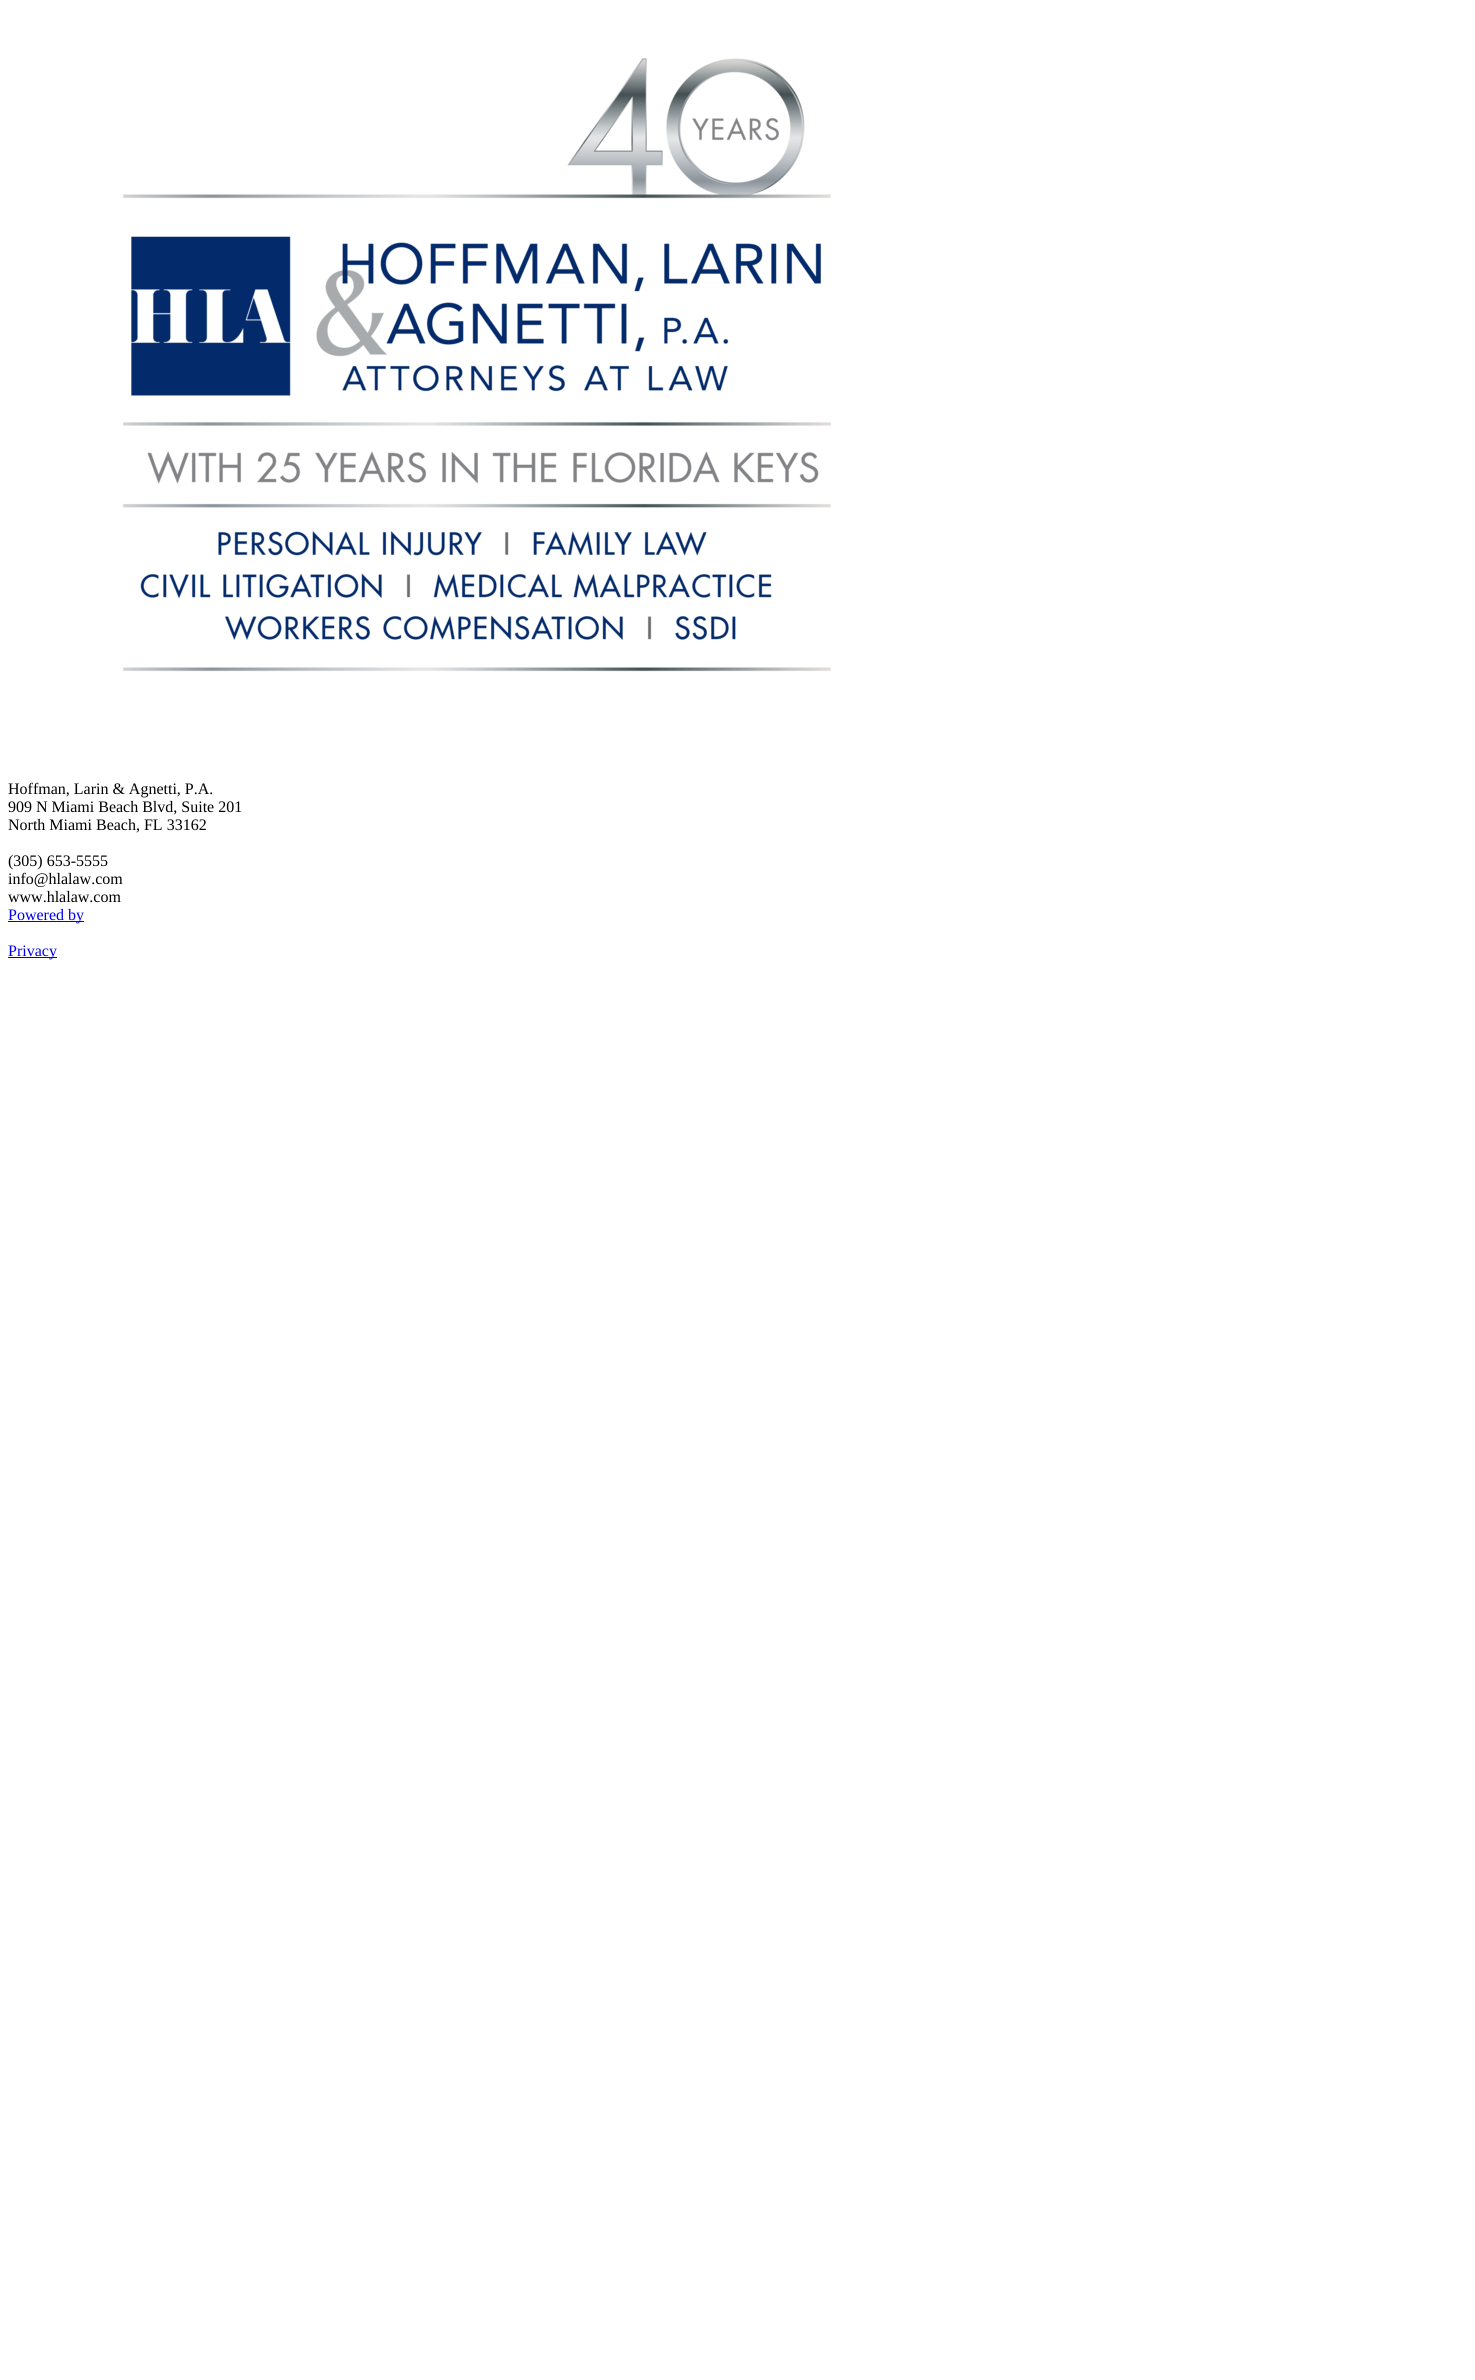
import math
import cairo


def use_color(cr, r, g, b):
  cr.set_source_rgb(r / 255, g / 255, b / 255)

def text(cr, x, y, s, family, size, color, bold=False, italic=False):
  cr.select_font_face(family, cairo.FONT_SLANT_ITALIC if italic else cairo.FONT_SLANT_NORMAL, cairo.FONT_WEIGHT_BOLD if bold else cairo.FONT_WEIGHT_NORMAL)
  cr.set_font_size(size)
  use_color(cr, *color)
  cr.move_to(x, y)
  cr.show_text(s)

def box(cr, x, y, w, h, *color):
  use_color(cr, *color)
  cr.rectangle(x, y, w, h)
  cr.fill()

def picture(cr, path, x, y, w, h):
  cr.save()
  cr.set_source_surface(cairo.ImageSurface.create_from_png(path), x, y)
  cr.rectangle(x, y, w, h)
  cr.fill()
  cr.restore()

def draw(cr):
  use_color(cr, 255, 255, 255)
  cr.paint()
  picture(cr, "img_01.png", 123, 58, 708, 614)
  box(cr, 8, 921, 76, 1, 0, 0, 238)
  box(cr, 8, 957, 49, 1, 0, 0, 238)
  text(cr, 8, 794, "Hoffman, Larin & Agnetti, P.A.", "Liberation Serif", 16, (0, 0, 0))
  text(cr, 8, 812, "909 N Miami Beach Blvd, Suite 201", "Liberation Serif", 16, (0, 0, 0))
  text(cr, 8, 830, "North Miami Beach, FL 33162", "Liberation Serif", 16, (0, 0, 0))
  text(cr, 8, 866, "(305) 653-5555", "Liberation Serif", 16, (0, 0, 0))
  text(cr, 8, 884, "info@hlalaw.com", "Liberation Serif", 16, (0, 0, 0))
  text(cr, 8, 902, "www.hlalaw.com", "Liberation Serif", 16, (0, 0, 0))
  text(cr, 8, 920, "Powered by", "Liberation Serif", 16, (0, 0, 238))
  text(cr, 8, 956, "Privacy", "Liberation Serif", 16, (0, 0, 238))


surface = cairo.ImageSurface(cairo.FORMAT_RGB24, 1475, 2380)
cr = cairo.Context(surface)
options = cairo.FontOptions()
options.set_hint_metrics(cairo.HINT_METRICS_OFF)
options.set_hint_style(cairo.HINT_STYLE_NONE)
cr.set_font_options(options)
cr.set_miter_limit(4)
draw(cr)
surface.write_to_png("out.png")
